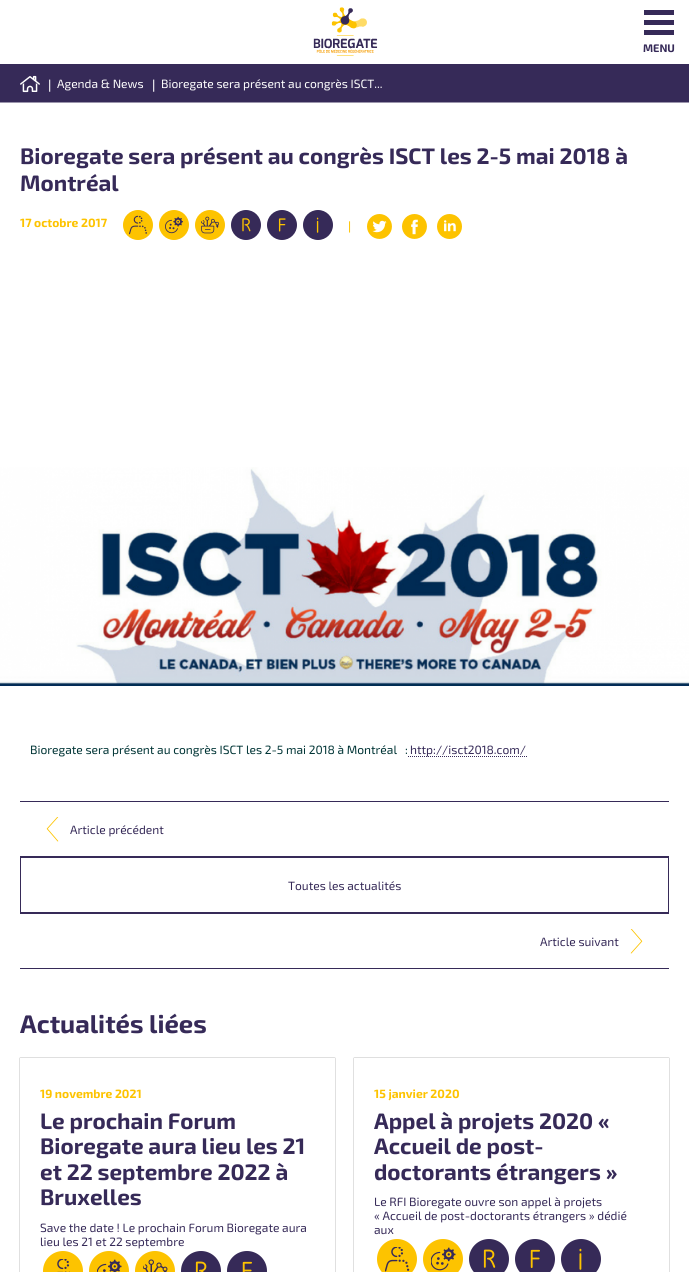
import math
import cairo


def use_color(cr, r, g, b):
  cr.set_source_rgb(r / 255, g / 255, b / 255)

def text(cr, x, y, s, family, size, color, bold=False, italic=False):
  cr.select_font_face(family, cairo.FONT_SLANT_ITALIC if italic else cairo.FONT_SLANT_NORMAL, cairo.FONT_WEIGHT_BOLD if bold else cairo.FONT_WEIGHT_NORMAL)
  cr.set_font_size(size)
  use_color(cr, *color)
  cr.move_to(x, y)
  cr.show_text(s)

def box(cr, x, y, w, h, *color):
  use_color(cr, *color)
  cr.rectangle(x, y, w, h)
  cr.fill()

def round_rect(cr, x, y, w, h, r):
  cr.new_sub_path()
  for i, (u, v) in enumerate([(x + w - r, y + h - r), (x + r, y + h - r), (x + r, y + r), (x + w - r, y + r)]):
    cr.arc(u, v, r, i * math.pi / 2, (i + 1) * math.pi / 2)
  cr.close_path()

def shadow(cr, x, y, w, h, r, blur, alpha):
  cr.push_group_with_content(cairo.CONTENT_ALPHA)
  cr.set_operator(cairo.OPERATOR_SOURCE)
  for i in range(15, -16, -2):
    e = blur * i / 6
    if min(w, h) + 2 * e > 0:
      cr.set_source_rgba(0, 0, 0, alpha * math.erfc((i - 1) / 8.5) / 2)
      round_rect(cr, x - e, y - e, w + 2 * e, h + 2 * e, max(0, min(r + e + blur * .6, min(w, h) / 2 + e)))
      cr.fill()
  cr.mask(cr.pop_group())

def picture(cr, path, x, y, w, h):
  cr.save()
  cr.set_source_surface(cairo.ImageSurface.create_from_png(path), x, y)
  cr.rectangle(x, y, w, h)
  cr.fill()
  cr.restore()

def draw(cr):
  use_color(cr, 255, 255, 255)
  cr.paint()
  picture(cr, "img_01.png", 313, 7, 65, 49)
  box(cr, 644, 10, 30, 5, 54, 42, 88)
  box(cr, 644, 20, 30, 5, 54, 42, 88)
  box(cr, 644, 30, 30, 5, 54, 42, 88)
  box(cr, 0, 64, 689, 38, 54, 42, 88)
  box(cr, 0, 102, 689, 1, 155, 149, 172)
  picture(cr, "img_02.png", 20, 75, 20, 18)
  use_color(cr, 253, 195, 0)
  cr.arc(138, 225, 15, 0, 2 * math.pi)
  cr.fill()
  picture(cr, "img_03.png", 129, 215, 18, 20)
  cr.arc(174, 225, 15, 0, 2 * math.pi)
  cr.fill()
  picture(cr, "img_04.png", 165, 216, 18, 18)
  cr.arc(210, 225, 15, 0, 2 * math.pi)
  cr.fill()
  picture(cr, "img_05.png", 201, 216, 18, 18)
  use_color(cr, 54, 42, 88)
  cr.arc(246, 225, 15, 0, 2 * math.pi)
  cr.fill()
  picture(cr, "img_06.png", 242, 218, 9, 14)
  cr.arc(282, 225, 15, 0, 2 * math.pi)
  cr.fill()
  picture(cr, "img_07.png", 278, 218, 8, 14)
  cr.arc(318, 225, 15, 0, 2 * math.pi)
  cr.fill()
  picture(cr, "img_08.png", 316, 217, 3, 16)
  picture(cr, "img_09.png", 367, 214, 25, 25)
  picture(cr, "img_10.png", 402, 214, 25, 25)
  picture(cr, "img_11.png", 437, 214, 25, 25)
  picture(cr, "img_12.png", 0, 467, 689, 219)
  cr.new_path()
  cr.move_to(408, 756.5)
  cr.line_to(527, 756.5)
  cr.set_line_width(1)
  cr.set_dash([1, 1])
  cr.stroke()
  box(cr, 20, 801, 649, 1, 54, 42, 88)
  box(cr, 20, 856, 649, 1, 54, 42, 88)
  picture(cr, "img_13.png", 46, 817, 13, 25)
  cr.rectangle(20.5, 857.5, 648, 55)
  cr.set_dash([])
  cr.stroke()
  box(cr, 20, 913, 649, 1, 54, 42, 88)
  box(cr, 20, 968, 649, 1, 54, 42, 88)
  picture(cr, "img_14.png", 630, 929, 13, 25)
  cr.save()
  cr.set_fill_rule(cairo.FILL_RULE_EVEN_ODD)
  cr.new_path()
  cr.move_to(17, 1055)
  cr.line_to(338, 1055)
  cr.line_to(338, 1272)
  cr.line_to(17, 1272)
  cr.close_path()
  cr.move_to(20, 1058)
  cr.line_to(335, 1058)
  cr.line_to(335, 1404)
  cr.line_to(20, 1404)
  cr.close_path()
  cr.clip()
  use_color(cr, 0, 0, 0)
  shadow(cr, 20, 1058, 315, 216, 0, 0.5, 0.5)
  cr.restore()
  use_color(cr, 253, 195, 0)
  cr.arc(63, 1271, 20, 0, 2 * math.pi)
  cr.fill()
  picture(cr, "img_15.png", 57, 1259, 13, 13)
  cr.arc(109, 1271, 20, 0, 2 * math.pi)
  cr.fill()
  picture(cr, "img_16.png", 97, 1259, 25, 13)
  cr.arc(155, 1271, 20, 0, 2 * math.pi)
  cr.fill()
  picture(cr, "img_17.png", 143, 1259, 25, 13)
  use_color(cr, 54, 42, 88)
  cr.arc(201, 1271, 20, 0, 2 * math.pi)
  cr.fill()
  picture(cr, "img_18.png", 195, 1261, 12, 11)
  cr.arc(247, 1271, 20, 0, 2 * math.pi)
  cr.fill()
  picture(cr, "img_19.png", 242, 1261, 10, 11)
  cr.save()
  cr.set_fill_rule(cairo.FILL_RULE_EVEN_ODD)
  cr.new_path()
  cr.move_to(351, 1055)
  cr.line_to(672, 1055)
  cr.line_to(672, 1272)
  cr.line_to(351, 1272)
  cr.close_path()
  cr.move_to(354, 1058)
  cr.line_to(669, 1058)
  cr.line_to(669, 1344)
  cr.line_to(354, 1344)
  cr.close_path()
  cr.clip()
  use_color(cr, 0, 0, 0)
  shadow(cr, 354, 1058, 315, 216, 0, 0.5, 0.5)
  cr.restore()
  use_color(cr, 253, 195, 0)
  cr.arc(397, 1259, 20, 0, 2 * math.pi)
  cr.fill()
  picture(cr, "img_20.png", 385, 1247, 25, 25)
  cr.arc(443, 1259, 20, 0, 2 * math.pi)
  cr.fill()
  picture(cr, "img_21.png", 431, 1247, 25, 24)
  use_color(cr, 54, 42, 88)
  cr.arc(489, 1259, 20, 0, 2 * math.pi)
  cr.fill()
  picture(cr, "img_22.png", 483, 1249, 13, 19)
  cr.arc(535, 1259, 20, 0, 2 * math.pi)
  cr.fill()
  picture(cr, "img_23.png", 530, 1249, 10, 19)
  cr.arc(581, 1259, 20, 0, 2 * math.pi)
  cr.fill()
  picture(cr, "img_24.png", 579, 1248, 3, 22)
  text(cr, 643, 52, "MENU", "Exo 2", 11, (54, 42, 88), bold=True)
  text(cr, 48, 89, "|", "Liberation Sans", 13, (255, 255, 255))
  text(cr, 57, 88, "Agenda & News", "Exo 2", 12, (255, 255, 255))
  text(cr, 152, 89, "|", "Liberation Sans", 13, (255, 255, 255))
  text(cr, 161, 88, "Bioregate sera présent au congrès ISCT...", "Exo 2", 12, (255, 255, 255))
  text(cr, 20, 164, "Bioregate sera présent au congrès ISCT les 2-5 mai 2018 à", "Exo 2", 22.4, (54, 42, 88), bold=True)
  text(cr, 20, 191, "Montréal", "Exo 2", 22.4, (54, 42, 88), bold=True)
  text(cr, 20, 227, "17 octobre 2017", "Exo 2", 12, (253, 195, 0), bold=True)
  text(cr, 348, 230, "|", "Liberation Sans", 12, (253, 195, 0))
  text(cr, 30, 754, "Bioregate sera présent au congrès ISCT les 2-5 mai 2018 à Montréal   :", "Exo 2", 12, (0, 52, 53))
  text(cr, 410, 754, "http://isct2018.com/", "Exo 2", 12, (54, 42, 88))
  text(cr, 70, 834, "Article précédent", "Exo 2", 12, (54, 42, 88))
  text(cr, 288, 890, "Toutes les actualités", "Exo 2", 12, (54, 42, 88))
  text(cr, 540, 946, "Article suivant", "Exo 2", 12, (54, 42, 88))
  text(cr, 20, 1033, "Actualités liées", "Exo 2", 25.5, (54, 42, 88), bold=True)
  text(cr, 40, 1098, "19 novembre 2021", "Exo 2", 12, (253, 195, 0), bold=True)
  text(cr, 40, 1129, "Le prochain Forum", "Exo 2", 22.4, (54, 42, 88), bold=True)
  text(cr, 40, 1154, "Bioregate aura lieu les 21", "Exo 2", 22.4, (54, 42, 88), bold=True)
  text(cr, 40, 1180, "et 22 septembre 2022 à", "Exo 2", 22.4, (54, 42, 88), bold=True)
  text(cr, 40, 1205, "Bruxelles", "Exo 2", 22.4, (54, 42, 88), bold=True)
  text(cr, 40, 1232, "Save the date ! Le prochain Forum Bioregate aura", "Exo 2", 12, (54, 42, 88))
  text(cr, 40, 1246, "lieu les 21 et 22 septembre", "Exo 2", 12, (54, 42, 88))
  text(cr, 374, 1098, "15 janvier 2020", "Exo 2", 12, (253, 195, 0), bold=True)
  text(cr, 374, 1129, "Appel à projets 2020 «", "Exo 2", 22.4, (54, 42, 88), bold=True)
  text(cr, 374, 1154, "Accueil de post-", "Exo 2", 22.4, (54, 42, 88), bold=True)
  text(cr, 374, 1180, "doctorants étrangers »", "Exo 2", 22.4, (54, 42, 88), bold=True)
  text(cr, 374, 1206, "Le RFI Bioregate ouvre son appel à projets", "Exo 2", 12, (54, 42, 88))
  text(cr, 374, 1220, "« Accueil de post-doctorants étrangers » dédié", "Exo 2", 12, (54, 42, 88))
  text(cr, 374, 1234, "aux", "Exo 2", 12, (54, 42, 88))


surface = cairo.ImageSurface(cairo.FORMAT_RGB24, 689, 1272)
cr = cairo.Context(surface)
options = cairo.FontOptions()
options.set_hint_metrics(cairo.HINT_METRICS_OFF)
options.set_hint_style(cairo.HINT_STYLE_NONE)
cr.set_font_options(options)
cr.set_miter_limit(4)
draw(cr)
surface.write_to_png("out.png")
